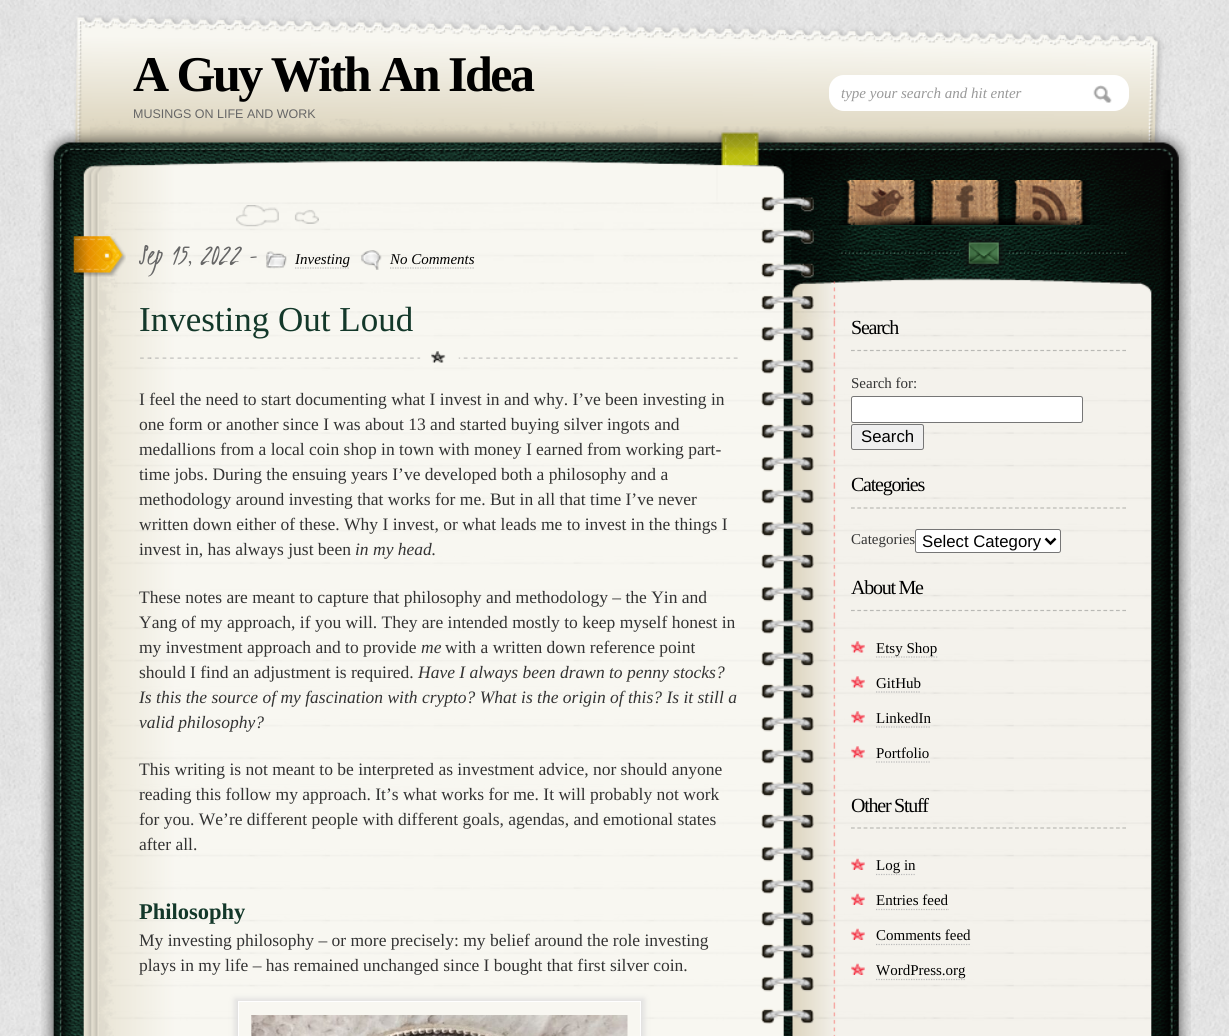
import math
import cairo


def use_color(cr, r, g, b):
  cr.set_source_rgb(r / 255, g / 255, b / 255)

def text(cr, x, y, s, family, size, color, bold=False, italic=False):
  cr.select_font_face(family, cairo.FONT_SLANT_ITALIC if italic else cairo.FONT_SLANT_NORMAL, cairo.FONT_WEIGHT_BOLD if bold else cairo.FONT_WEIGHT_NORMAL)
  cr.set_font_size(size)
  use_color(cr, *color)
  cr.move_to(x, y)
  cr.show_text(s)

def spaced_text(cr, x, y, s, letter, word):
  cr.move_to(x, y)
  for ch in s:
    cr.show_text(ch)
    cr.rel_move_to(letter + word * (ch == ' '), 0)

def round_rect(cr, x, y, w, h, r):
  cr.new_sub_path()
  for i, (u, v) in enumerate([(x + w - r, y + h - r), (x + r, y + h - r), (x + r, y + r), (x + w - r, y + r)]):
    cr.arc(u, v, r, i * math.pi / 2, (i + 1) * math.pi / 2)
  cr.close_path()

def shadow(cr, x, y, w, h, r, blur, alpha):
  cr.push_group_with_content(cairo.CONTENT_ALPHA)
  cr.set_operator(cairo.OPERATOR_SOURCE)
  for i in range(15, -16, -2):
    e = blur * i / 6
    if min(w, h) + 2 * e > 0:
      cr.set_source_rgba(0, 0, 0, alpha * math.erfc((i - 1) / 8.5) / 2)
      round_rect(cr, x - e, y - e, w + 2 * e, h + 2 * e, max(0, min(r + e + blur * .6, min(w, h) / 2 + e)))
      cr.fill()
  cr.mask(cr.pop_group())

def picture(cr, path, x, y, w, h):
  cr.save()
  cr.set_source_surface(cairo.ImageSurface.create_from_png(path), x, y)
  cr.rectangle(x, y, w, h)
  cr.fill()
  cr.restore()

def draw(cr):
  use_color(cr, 255, 255, 255)
  cr.paint()
  picture(cr, "img_01.png", 0, 0, 1229, 1036)
  picture(cr, "img_02.png", 41, 15, 1150, 165)
  use_color(cr, 255, 255, 255)
  round_rect(cr, 829, 75, 300, 36, 15)
  cr.fill()
  picture(cr, "img_03.png", 1093, 85, 19, 18)
  picture(cr, "img_04.png", 41, 180, 1150, 856)
  picture(cr, "img_05.png", 53, 180, 1126, 140)
  picture(cr, "img_06.png", 236, 205, 83, 22)
  picture(cr, "img_07.png", 73, 236, 53, 41)
  picture(cr, "img_08.png", 140, 351, 598, 12)
  picture(cr, "img_09.png", 266, 251, 21, 18)
  cr.new_path()
  cr.move_to(295, 268)
  cr.line_to(350, 268)
  use_color(cr, 187, 187, 187)
  cr.set_line_width(1.2)
  cr.set_dash([1.25, 1.25])
  cr.stroke()
  picture(cr, "img_10.png", 361, 250, 21, 20)
  cr.new_path()
  cr.move_to(390, 268)
  cr.line_to(475, 268)
  cr.stroke()
  use_color(cr, 221, 221, 221)
  shadow(cr, 235, 999, 409, 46, 0, 3, 1)
  use_color(cr, 248, 247, 241)
  cr.rectangle(238.5, 1001.5, 402, 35)
  cr.fill_preserve()
  use_color(cr, 255, 255, 255)
  cr.set_line_width(1)
  cr.set_dash([])
  cr.stroke()
  picture(cr, "img_11.png", 251, 1015, 377, 21)
  picture(cr, "img_12.png", 824, 216, 290, 11)
  picture(cr, "img_13.png", 839, 180, 82, 45)
  picture(cr, "img_14.png", 922, 180, 84, 45)
  picture(cr, "img_15.png", 1006, 180, 84, 45)
  picture(cr, "img_16.png", 840, 236, 287, 35)
  cr.new_path()
  cr.move_to(851, 350.5)
  cr.line_to(1126, 350.5)
  use_color(cr, 185, 185, 181)
  cr.set_line_width(1.2)
  cr.set_dash([3.75, 2.56])
  cr.stroke()
  use_color(cr, 255, 255, 255)
  round_rect(cr, 851.5, 396.5, 231, 26, 2)
  cr.fill_preserve()
  use_color(cr, 118, 118, 118)
  cr.set_line_width(1)
  cr.set_dash([])
  cr.stroke()
  use_color(cr, 239, 239, 239)
  round_rect(cr, 851.5, 424.5, 72, 25, 2)
  cr.fill_preserve()
  use_color(cr, 118, 118, 118)
  cr.stroke()
  cr.new_path()
  cr.move_to(851, 508)
  cr.line_to(1126, 508)
  use_color(cr, 185, 185, 181)
  cr.set_line_width(1.2)
  cr.set_dash([3.75, 2.56])
  cr.stroke()
  use_color(cr, 255, 255, 255)
  round_rect(cr, 915.5, 529.5, 145, 23, 2)
  cr.fill_preserve()
  use_color(cr, 118, 118, 118)
  cr.set_line_width(1)
  cr.set_dash([])
  cr.stroke()
  cr.new_path()
  cr.move_to(1045.5, 538.5)
  cr.line_to(1050.5, 543.5)
  cr.line_to(1055.5, 538.5)
  use_color(cr, 0, 0, 0)
  cr.set_line_width(2.5)
  cr.stroke()
  cr.new_path()
  cr.move_to(851, 610.5)
  cr.line_to(1126, 610.5)
  use_color(cr, 185, 185, 181)
  cr.set_line_width(1.2)
  cr.set_dash([3.75, 2.56])
  cr.stroke()
  picture(cr, "img_17.png", 851, 641, 14, 12)
  cr.new_path()
  cr.move_to(876, 657)
  cr.line_to(937.5, 657)
  use_color(cr, 187, 187, 187)
  cr.set_dash([1.25, 1.25])
  cr.stroke()
  picture(cr, "img_18.png", 851, 676, 14, 12)
  cr.new_path()
  cr.move_to(876, 692)
  cr.line_to(921, 692)
  cr.stroke()
  picture(cr, "img_19.png", 851, 711, 14, 12)
  cr.new_path()
  cr.move_to(876, 727)
  cr.line_to(931, 727)
  cr.stroke()
  picture(cr, "img_20.png", 851, 746, 14, 12)
  cr.new_path()
  cr.move_to(876, 762)
  cr.line_to(930, 762)
  cr.stroke()
  cr.new_path()
  cr.move_to(851, 828)
  cr.line_to(1126, 828)
  use_color(cr, 185, 185, 181)
  cr.set_dash([3.75, 2.56])
  cr.stroke()
  picture(cr, "img_21.png", 851, 858, 14, 12)
  cr.new_path()
  cr.move_to(876, 874.5)
  cr.line_to(916, 874.5)
  use_color(cr, 187, 187, 187)
  cr.set_dash([1.25, 1.25])
  cr.stroke()
  picture(cr, "img_22.png", 851, 893, 14, 12)
  cr.new_path()
  cr.move_to(876, 909.5)
  cr.line_to(949, 909.5)
  cr.stroke()
  picture(cr, "img_22.png", 851, 928, 14, 12)
  cr.new_path()
  cr.move_to(876, 944.5)
  cr.line_to(971, 944.5)
  cr.stroke()
  picture(cr, "img_22.png", 851, 963, 14, 12)
  cr.new_path()
  cr.move_to(876, 979.5)
  cr.line_to(966, 979.5)
  cr.stroke()
  cr.select_font_face("Liberation Serif", cairo.FONT_SLANT_NORMAL, cairo.FONT_WEIGHT_BOLD)
  cr.set_font_size(50)
  use_color(cr, 0, 0, 0)
  spaced_text(cr, 133, 91, "A Guy With An Idea", -2.5, 0)
  text(cr, 133, 118, "MUSINGS ON LIFE AND WORK", "Liberation Sans", 12.5, (102, 102, 102))
  text(cr, 841, 98, "type your search and hit enter", "Liberation Serif", 15, (153, 153, 153), italic=True)
  text(cr, 139, 264, "Sep 15, 2022 -", "Kristi", 32.5, (102, 102, 102))
  text(cr, 295, 264, "Investing", "Liberation Serif", 15, (0, 0, 0), italic=True)
  text(cr, 390, 264, "No Comments", "Liberation Serif", 15, (0, 0, 0), italic=True)
  text(cr, 139, 331, "Investing Out Loud", "Liberation Serif", 35, (19, 56, 42))
  text(cr, 139, 405, "I feel the need to start documenting what I invest in and why. I’ve been investing in", "Liberation Serif", 17.5, (51, 51, 51))
  text(cr, 139, 430, "one form or another since I was about 13 and started buying silver ingots and", "Liberation Serif", 17.5, (51, 51, 51))
  text(cr, 139, 455, "medallions from a local coin shop in town with money I earned from working part-", "Liberation Serif", 17.5, (51, 51, 51))
  text(cr, 139, 480, "time jobs. During the ensuing years I’ve developed both a philosophy and a", "Liberation Serif", 17.5, (51, 51, 51))
  text(cr, 139, 505, "methodology around investing that works for me. But in all that time I’ve never", "Liberation Serif", 17.5, (51, 51, 51))
  text(cr, 139, 530, "written down either of these. Why I invest, or what leads me to invest in the things I", "Liberation Serif", 17.5, (51, 51, 51))
  text(cr, 139, 555, "invest in, has always just been", "Liberation Serif", 17.5, (51, 51, 51))
  text(cr, 355, 555, "in my head.", "Liberation Serif", 17.5, (51, 51, 51), italic=True)
  text(cr, 139, 603, "These notes are meant to capture that philosophy and methodology – the Yin and", "Liberation Serif", 17.5, (51, 51, 51))
  text(cr, 139, 628, "Yang of my approach, if you will. They are intended mostly to keep myself honest in", "Liberation Serif", 17.5, (51, 51, 51))
  text(cr, 139, 653, "my investment approach and to provide", "Liberation Serif", 17.5, (51, 51, 51))
  text(cr, 421, 653, "me", "Liberation Serif", 17.5, (51, 51, 51), italic=True)
  text(cr, 445, 653, "with a written down reference point", "Liberation Serif", 17.5, (51, 51, 51))
  text(cr, 139, 678, "should I find an adjustment is required.", "Liberation Serif", 17.5, (51, 51, 51))
  text(cr, 418, 678, "Have I always been drawn to penny stocks?", "Liberation Serif", 17.5, (51, 51, 51), italic=True)
  text(cr, 139, 703, "Is this the source of my fascination with crypto? What is the origin of this? Is it still a", "Liberation Serif", 17.5, (51, 51, 51), italic=True)
  text(cr, 139, 728, "valid philosophy?", "Liberation Serif", 17.5, (51, 51, 51), italic=True)
  text(cr, 139, 775, "This writing is not meant to be interpreted as investment advice, nor should anyone", "Liberation Serif", 17.5, (51, 51, 51))
  text(cr, 139, 800, "reading this follow my approach. It’s what works for me. It will probably not work", "Liberation Serif", 17.5, (51, 51, 51))
  text(cr, 139, 825, "for you. We’re different people with different goals, agendas, and emotional states", "Liberation Serif", 17.5, (51, 51, 51))
  text(cr, 139, 850, "after all.", "Liberation Serif", 17.5, (51, 51, 51))
  text(cr, 139, 919, "Philosophy", "Liberation Serif", 22.5, (19, 56, 42), bold=True)
  text(cr, 139, 946, "My investing philosophy – or more precisely: my belief around the role investing", "Liberation Serif", 17.5, (51, 51, 51))
  text(cr, 139, 971, "plays in my life – has remained unchanged since I bought that first silver coin.", "Liberation Serif", 17.5, (51, 51, 51))
  cr.set_font_size(20)
  use_color(cr, 0, 0, 0)
  spaced_text(cr, 851, 334, "Search", -1.25, 0)
  text(cr, 851, 388, "Search for:", "Liberation Serif", 15, (51, 51, 51))
  text(cr, 861, 442, "Search", "Liberation Sans", 16.75, (0, 0, 0))
  cr.select_font_face("Liberation Serif")
  cr.set_font_size(20)
  spaced_text(cr, 851, 491, "Categories", -1.25, 0)
  text(cr, 851, 544, "Categories", "Liberation Serif", 15, (51, 51, 51))
  text(cr, 922, 547, "Select Category", "Liberation Sans", 16.75, (0, 0, 0))
  cr.select_font_face("Liberation Serif")
  cr.set_font_size(20)
  spaced_text(cr, 851, 594, "About Me", -1.25, 0)
  text(cr, 876, 653, "Etsy Shop", "Liberation Serif", 15, (0, 0, 0))
  text(cr, 876, 688, "GitHub", "Liberation Serif", 15, (0, 0, 0))
  text(cr, 876, 723, "LinkedIn", "Liberation Serif", 15, (0, 0, 0))
  text(cr, 876, 758, "Portfolio", "Liberation Serif", 15, (0, 0, 0))
  cr.set_font_size(20)
  spaced_text(cr, 851, 812, "Other Stuff", -1.25, 0)
  text(cr, 876, 870, "Log in", "Liberation Serif", 15, (0, 0, 0))
  text(cr, 876, 905, "Entries feed", "Liberation Serif", 15, (0, 0, 0))
  text(cr, 876, 940, "Comments feed", "Liberation Serif", 15, (0, 0, 0))
  text(cr, 876, 975, "WordPress.org", "Liberation Serif", 15, (0, 0, 0))


surface = cairo.ImageSurface(cairo.FORMAT_RGB24, 1229, 1036)
cr = cairo.Context(surface)
options = cairo.FontOptions()
options.set_hint_metrics(cairo.HINT_METRICS_OFF)
options.set_hint_style(cairo.HINT_STYLE_NONE)
cr.set_font_options(options)
cr.set_miter_limit(4)
draw(cr)
surface.write_to_png("out.png")
